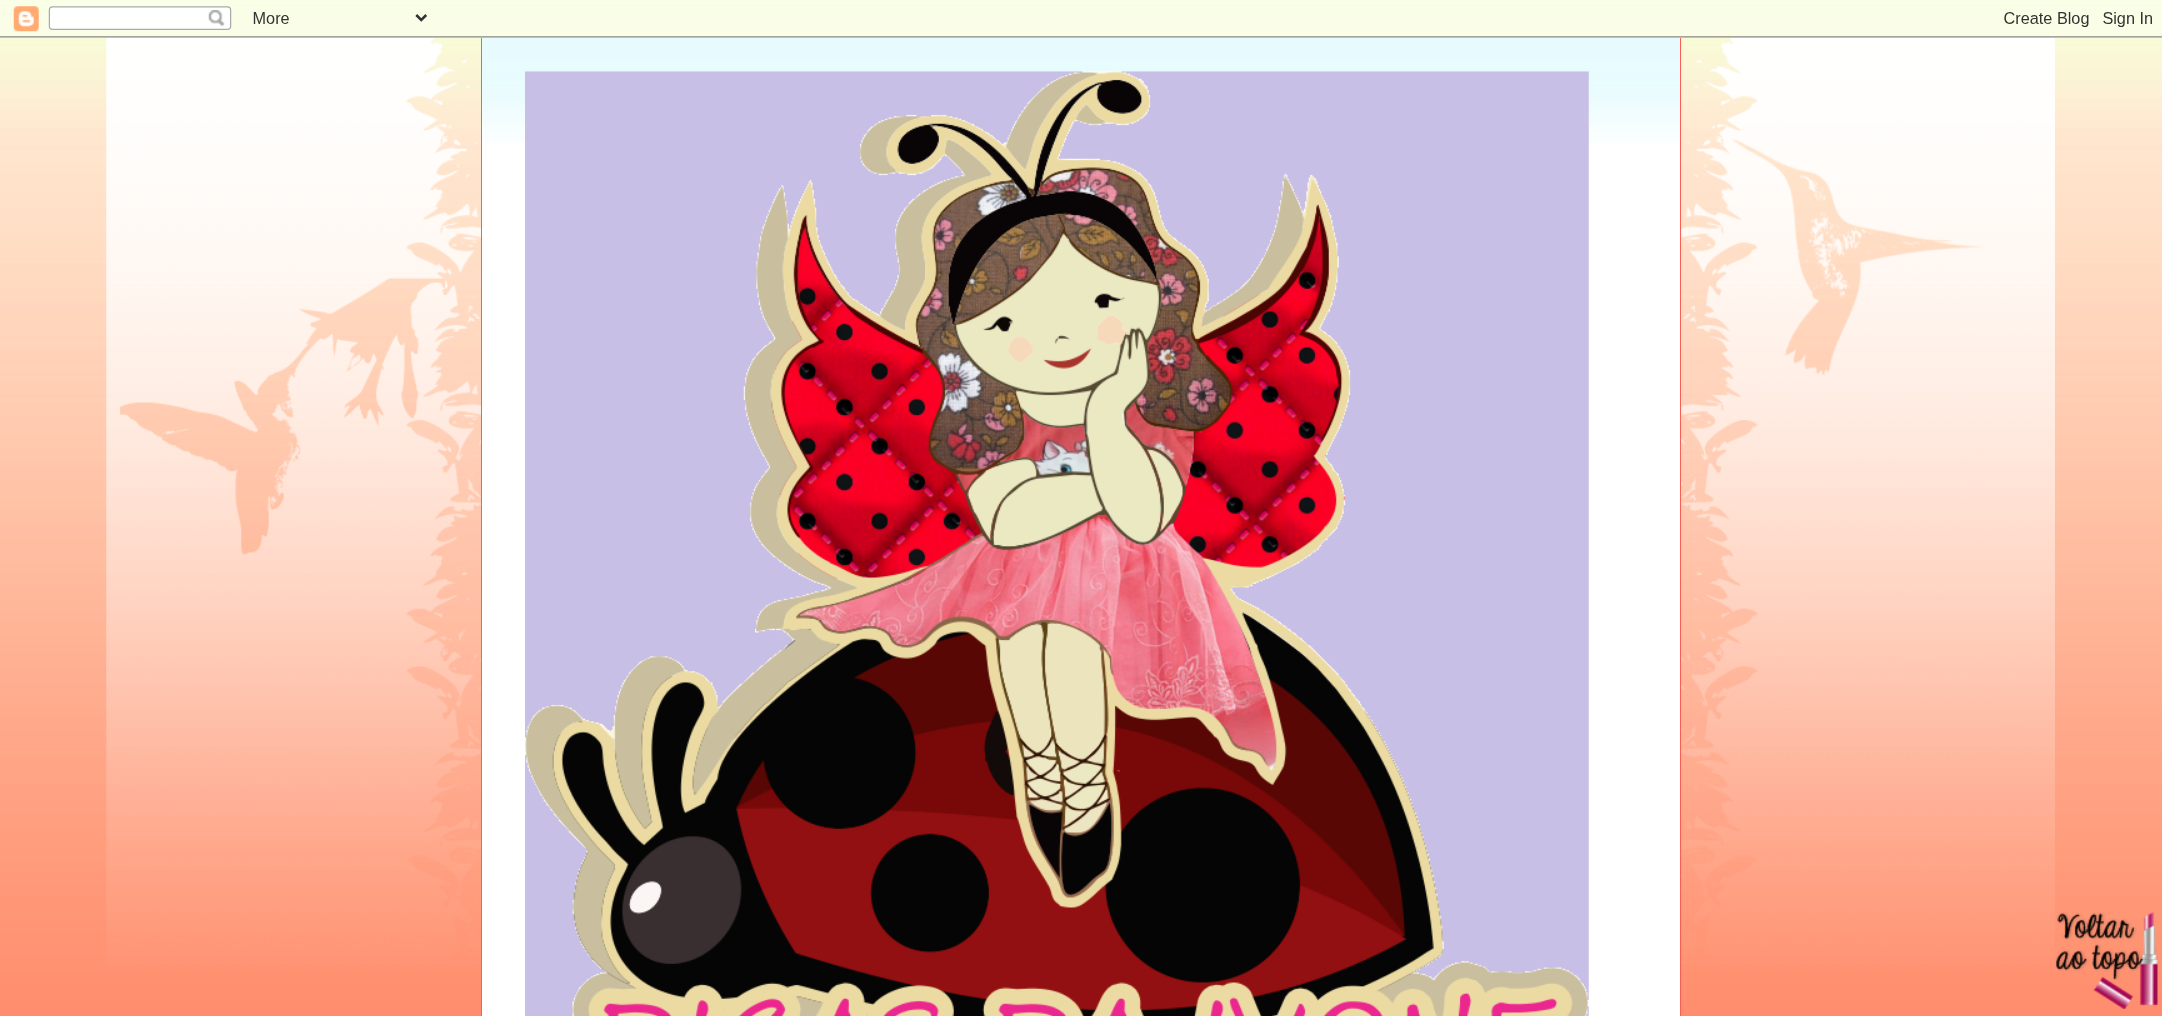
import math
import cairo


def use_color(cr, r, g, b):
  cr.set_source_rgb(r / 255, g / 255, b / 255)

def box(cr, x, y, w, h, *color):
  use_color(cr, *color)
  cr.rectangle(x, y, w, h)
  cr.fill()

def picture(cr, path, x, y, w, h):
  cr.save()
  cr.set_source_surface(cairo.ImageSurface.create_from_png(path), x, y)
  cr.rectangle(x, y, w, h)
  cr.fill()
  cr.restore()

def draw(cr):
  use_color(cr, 255, 255, 255)
  cr.paint()
  picture(cr, "img_01.png", 0, 0, 2162, 1016)
  picture(cr, "img_03.png", 106, 37, 1576, 927)
  box(cr, 482, 38, 1198, 978, 255, 255, 255)
  picture(cr, "img_04.png", 481, 37, 1201, 106)
  picture(cr, "img_05.png", 1681, 37, 374, 927)
  picture(cr, "img_02.png", 0, 0, 2162, 38)
  box(cr, 1680, 38, 1, 978, 251, 94, 83)
  box(cr, 481, 38, 1, 978, 251, 94, 83)
  picture(cr, "img_06.png", 525, 71, 1064, 945)
  picture(cr, "img_07.png", 2055, 912, 103, 97)


surface = cairo.ImageSurface(cairo.FORMAT_RGB24, 2162, 1016)
cr = cairo.Context(surface)
options = cairo.FontOptions()
options.set_hint_metrics(cairo.HINT_METRICS_OFF)
options.set_hint_style(cairo.HINT_STYLE_NONE)
cr.set_font_options(options)
cr.set_miter_limit(4)
draw(cr)
surface.write_to_png("out.png")
